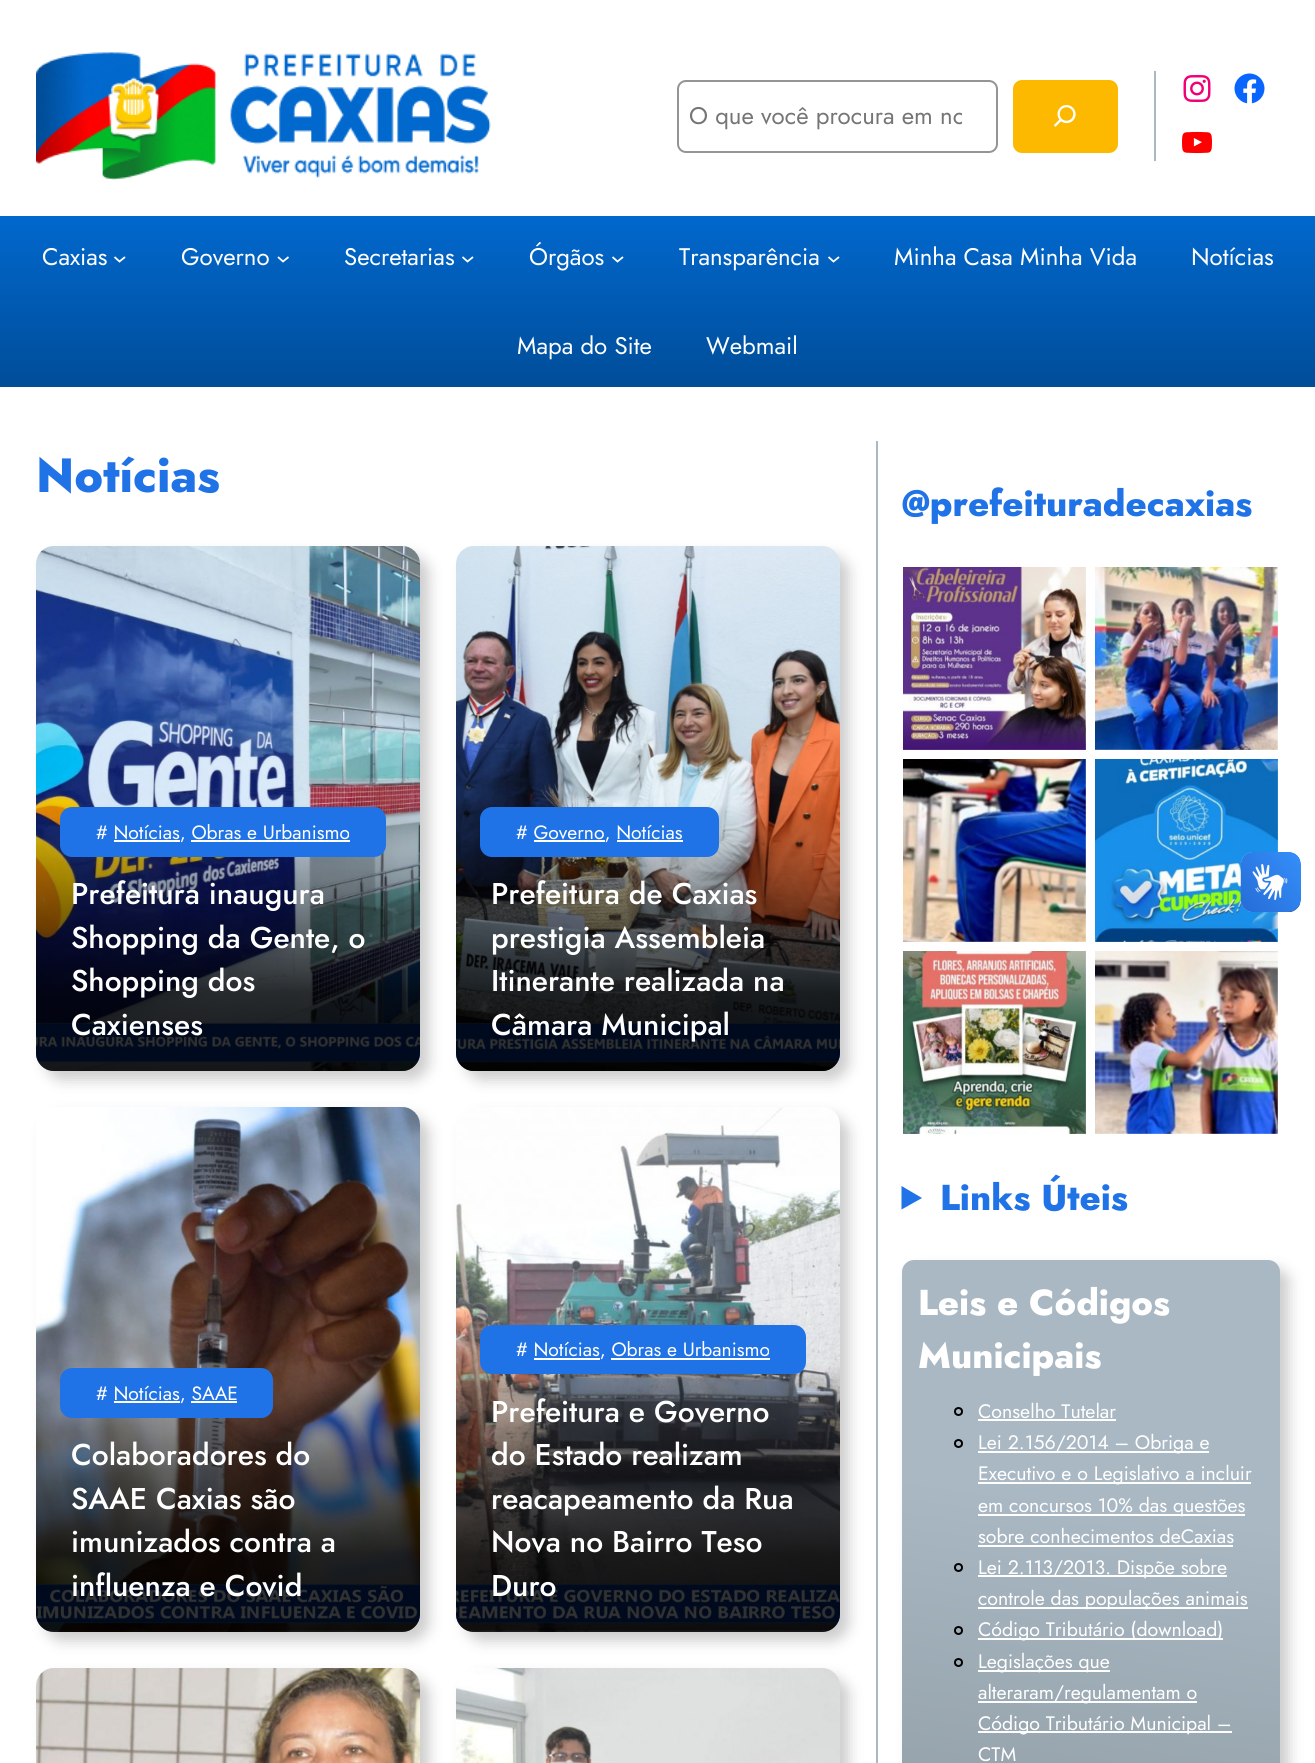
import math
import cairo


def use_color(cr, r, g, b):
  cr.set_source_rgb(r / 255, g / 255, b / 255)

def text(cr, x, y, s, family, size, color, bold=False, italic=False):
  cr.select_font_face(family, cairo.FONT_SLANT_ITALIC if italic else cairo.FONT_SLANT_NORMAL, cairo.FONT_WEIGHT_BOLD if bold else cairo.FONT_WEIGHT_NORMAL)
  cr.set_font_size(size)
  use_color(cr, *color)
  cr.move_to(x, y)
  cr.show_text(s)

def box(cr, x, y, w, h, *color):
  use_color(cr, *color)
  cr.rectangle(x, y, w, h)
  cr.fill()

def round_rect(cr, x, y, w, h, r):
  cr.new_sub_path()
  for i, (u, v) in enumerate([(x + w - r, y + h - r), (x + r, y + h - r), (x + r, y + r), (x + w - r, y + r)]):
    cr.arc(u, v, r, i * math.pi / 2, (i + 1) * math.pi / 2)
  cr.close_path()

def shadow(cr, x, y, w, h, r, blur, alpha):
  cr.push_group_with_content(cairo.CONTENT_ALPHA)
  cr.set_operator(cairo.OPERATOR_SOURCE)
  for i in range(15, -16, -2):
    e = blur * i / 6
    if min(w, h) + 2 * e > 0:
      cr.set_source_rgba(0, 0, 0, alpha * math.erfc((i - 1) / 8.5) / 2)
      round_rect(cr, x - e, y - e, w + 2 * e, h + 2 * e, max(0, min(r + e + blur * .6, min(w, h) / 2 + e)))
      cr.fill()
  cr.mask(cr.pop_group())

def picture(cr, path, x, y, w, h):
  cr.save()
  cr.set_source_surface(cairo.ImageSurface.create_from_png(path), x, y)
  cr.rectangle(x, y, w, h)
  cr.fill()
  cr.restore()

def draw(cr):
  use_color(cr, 255, 255, 255)
  cr.paint()
  picture(cr, "img_01.png", 36, 52, 455, 128)
  round_rect(cr, 678, 81, 319, 71, 8)
  use_color(cr, 148, 148, 148)
  cr.stroke()
  use_color(cr, 252, 185, 0)
  round_rect(cr, 1013, 80, 105, 73, 9)
  cr.fill()
  picture(cr, "img_02.png", 1053, 105, 23, 22)
  box(cr, 1154, 71, 2, 90, 171, 184, 195)
  picture(cr, "img_03.png", 1183, 75, 28, 27)
  picture(cr, "img_04.png", 1234, 73, 31, 31)
  picture(cr, "img_05.png", 1182, 131, 30, 23)
  gradient = cairo.LinearGradient(658, 216, 658, 387)
  gradient.add_color_stop_rgba(0, 0.004, 0.408, 0.804, 1)
  gradient.add_color_stop_rgba(1, 0, 0.302, 0.6, 1)
  cr.set_source(gradient)
  cr.rectangle(0, 216, 1315, 171)
  cr.fill()
  cr.new_path()
  cr.move_to(114.5, 257)
  cr.line_to(119.5, 261.5)
  cr.line_to(125, 257)
  use_color(cr, 255, 255, 255)
  cr.set_line_width(1.8)
  cr.stroke()
  cr.new_path()
  cr.move_to(278, 257)
  cr.line_to(283, 261.5)
  cr.line_to(288.5, 257)
  cr.stroke()
  cr.new_path()
  cr.move_to(462.5, 257)
  cr.line_to(467.5, 261.5)
  cr.line_to(473, 257)
  cr.stroke()
  cr.new_path()
  cr.move_to(612.5, 257)
  cr.line_to(617.5, 261.5)
  cr.line_to(623, 257)
  cr.stroke()
  cr.new_path()
  cr.move_to(828.5, 257)
  cr.line_to(833.5, 261.5)
  cr.line_to(839, 257)
  cr.stroke()
  use_color(cr, 0, 0, 0)
  shadow(cr, 45, 555, 384, 525, 18, 7, 0.2)
  picture(cr, "img_06.png", 36, 546, 384, 525)
  gradient = cairo.LinearGradient(228, 546, 228, 1071)
  gradient.add_color_stop_rgba(0.49, 0, 0, 0, 0)
  gradient.add_color_stop_rgba(0.85, 0, 0, 0, 0.8)
  cr.set_source(gradient)
  round_rect(cr, 36, 546, 384, 525, 18)
  cr.fill()
  use_color(cr, 32, 115, 230)
  round_rect(cr, 60, 807, 326, 50, 12)
  cr.fill()
  box(cr, 114, 840, 66, 2, 255, 255, 255)
  box(cr, 191, 840, 159, 2, 255, 255, 255)
  use_color(cr, 0, 0, 0)
  shadow(cr, 465, 555, 384, 525, 18, 7, 0.2)
  picture(cr, "img_07.png", 456, 546, 384, 525)
  gradient = cairo.LinearGradient(648, 546, 648, 1071)
  gradient.add_color_stop_rgba(0.49, 0, 0, 0, 0)
  gradient.add_color_stop_rgba(0.85, 0, 0, 0, 0.8)
  cr.set_source(gradient)
  round_rect(cr, 456, 546, 384, 525, 18)
  cr.fill()
  use_color(cr, 32, 115, 230)
  round_rect(cr, 480, 807, 239, 50, 12)
  cr.fill()
  box(cr, 534, 840, 71, 2, 255, 255, 255)
  box(cr, 617, 840, 66, 2, 255, 255, 255)
  use_color(cr, 0, 0, 0)
  shadow(cr, 45, 1116, 384, 525, 18, 7, 0.2)
  picture(cr, "img_08.png", 36, 1107, 384, 525)
  gradient = cairo.LinearGradient(228, 1107, 228, 1632)
  gradient.add_color_stop_rgba(0.49, 0, 0, 0, 0)
  gradient.add_color_stop_rgba(0.85, 0, 0, 0, 0.8)
  cr.set_source(gradient)
  round_rect(cr, 36, 1107, 384, 525, 18)
  cr.fill()
  use_color(cr, 32, 115, 230)
  round_rect(cr, 60, 1368, 213, 50, 12)
  cr.fill()
  box(cr, 114, 1401, 66, 2, 255, 255, 255)
  box(cr, 191, 1401, 46, 2, 255, 255, 255)
  use_color(cr, 0, 0, 0)
  shadow(cr, 465, 1116, 384, 525, 18, 7, 0.2)
  picture(cr, "img_09.png", 456, 1107, 384, 525)
  gradient = cairo.LinearGradient(648, 1107, 648, 1632)
  gradient.add_color_stop_rgba(0.49, 0, 0, 0, 0)
  gradient.add_color_stop_rgba(0.85, 0, 0, 0, 0.8)
  cr.set_source(gradient)
  round_rect(cr, 456, 1107, 384, 525, 18)
  cr.fill()
  use_color(cr, 32, 115, 230)
  round_rect(cr, 480, 1325, 326, 49, 12)
  cr.fill()
  box(cr, 534, 1358, 66, 2, 255, 255, 255)
  box(cr, 611, 1358, 159, 2, 255, 255, 255)
  use_color(cr, 0, 0, 0)
  shadow(cr, 45, 1677, 384, 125, 18, 7, 0.2)
  picture(cr, "img_10.png", 36, 1668, 384, 95)
  shadow(cr, 465, 1677, 384, 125, 18, 7, 0.2)
  picture(cr, "img_11.png", 456, 1668, 384, 95)
  box(cr, 876, 441, 2, 1322, 171, 184, 195)
  picture(cr, "img_12.png", 903, 567, 183, 183)
  picture(cr, "img_13.png", 1095, 567, 183, 183)
  picture(cr, "img_14.png", 903, 759, 183, 183)
  picture(cr, "img_15.png", 1095, 759, 183, 183)
  picture(cr, "img_16.png", 903, 951, 183, 183)
  picture(cr, "img_17.png", 1095, 951, 183, 183)
  use_color(cr, 32, 115, 230)
  cr.new_path()
  cr.move_to(901.5, 1186)
  cr.line_to(922, 1198)
  cr.line_to(901.5, 1209.5)
  cr.close_path()
  cr.fill()
  use_color(cr, 0, 0, 0)
  shadow(cr, 911, 1269, 378, 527, 12, 7, 0.2)
  gradient = cairo.LinearGradient(1025, 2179, 1156, 1243)
  gradient.add_color_stop_rgba(0, 0.494, 0.537, 0.569, 1)
  gradient.add_color_stop_rgba(0.72, 0.663, 0.722, 0.765, 1)
  cr.set_source(gradient)
  round_rect(cr, 902, 1260, 378, 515, 12)
  cr.fill()
  cr.arc(958.5, 1411.5, 3.5, 0, 2 * math.pi)
  use_color(cr, 0, 0, 0)
  cr.set_line_width(2)
  cr.stroke()
  box(cr, 978, 1419, 138, 2, 255, 255, 255)
  cr.arc(958.5, 1443.5, 3.5, 0, 2 * math.pi)
  use_color(cr, 0, 0, 0)
  cr.stroke()
  box(cr, 978, 1451, 231, 2, 255, 255, 255)
  box(cr, 978, 1482, 273, 2, 255, 255, 255)
  box(cr, 978, 1514, 267, 2, 255, 255, 255)
  box(cr, 978, 1545, 255, 2, 255, 255, 255)
  cr.arc(958.5, 1567.5, 3.5, 0, 2 * math.pi)
  use_color(cr, 0, 0, 0)
  cr.stroke()
  box(cr, 978, 1575, 249, 2, 255, 255, 255)
  box(cr, 978, 1607, 270, 2, 255, 255, 255)
  cr.arc(958.5, 1630.5, 3.5, 0, 2 * math.pi)
  use_color(cr, 0, 0, 0)
  cr.stroke()
  box(cr, 978, 1638, 245, 2, 255, 255, 255)
  cr.arc(958.5, 1662.5, 3.5, 0, 2 * math.pi)
  use_color(cr, 0, 0, 0)
  cr.stroke()
  box(cr, 978, 1670, 132, 2, 255, 255, 255)
  box(cr, 978, 1701, 219, 2, 255, 255, 255)
  box(cr, 978, 1731, 254, 2, 255, 255, 255)
  picture(cr, "img_18.png", 1240, 852, 61, 60)
  picture(cr, "img_19.png", 1241, 852, 60, 60)
  cr.save()
  cr.rectangle(690, 99, 272, 35)
  cr.clip()
  text(cr, 689, 124, "O que você procura em no", "Jost", 24, (117, 117, 117))
  cr.restore()
  text(cr, 42, 265, "Caxias", "Jost", 24, (255, 255, 255))
  text(cr, 181, 265, "Governo", "Jost", 24, (255, 255, 255))
  text(cr, 344, 265, "Secretarias", "Jost", 24, (255, 255, 255))
  text(cr, 529, 265, "Órgãos", "Jost", 24, (255, 255, 255))
  text(cr, 679, 265, "Transparência", "Jost", 24, (255, 255, 255))
  text(cr, 894, 265, "Minha Casa Minha Vida", "Jost", 24, (255, 255, 255))
  text(cr, 1191, 265, "Notícias", "Jost", 24, (255, 255, 255))
  text(cr, 517, 354, "Mapa do Site", "Jost", 24, (255, 255, 255))
  text(cr, 706, 354, "Webmail", "Jost", 24, (255, 255, 255))
  text(cr, 36, 492, "Notícias", "Jost ExtraBold", 48, (32, 115, 230))
  text(cr, 96, 839, "# Notícias, Obras e Urbanismo", "Jost", 19.25, (255, 255, 255))
  text(cr, 71, 904, "Prefeitura inaugura", "Jost Medium", 30, (255, 255, 255))
  text(cr, 71, 948, "Shopping da Gente, o", "Jost Medium", 30, (255, 255, 255))
  text(cr, 71, 991, "Shopping dos", "Jost Medium", 30, (255, 255, 255))
  text(cr, 71, 1035, "Caxienses", "Jost Medium", 30, (255, 255, 255))
  text(cr, 516, 839, "# Governo, Notícias", "Jost", 19.25, (255, 255, 255))
  text(cr, 491, 904, "Prefeitura de Caxias", "Jost Medium", 30, (255, 255, 255))
  text(cr, 491, 948, "prestigia Assembleia", "Jost Medium", 30, (255, 255, 255))
  text(cr, 491, 991, "Itinerante realizada na", "Jost Medium", 30, (255, 255, 255))
  text(cr, 491, 1035, "Câmara Municipal", "Jost Medium", 30, (255, 255, 255))
  text(cr, 96, 1400, "# Notícias, SAAE", "Jost", 19.25, (255, 255, 255))
  text(cr, 71, 1465, "Colaboradores do", "Jost Medium", 30, (255, 255, 255))
  text(cr, 71, 1509, "SAAE Caxias são", "Jost Medium", 30, (255, 255, 255))
  text(cr, 71, 1552, "imunizados contra a", "Jost Medium", 30, (255, 255, 255))
  text(cr, 71, 1596, "influenza e Covid", "Jost Medium", 30, (255, 255, 255))
  text(cr, 516, 1356, "# Notícias, Obras e Urbanismo", "Jost", 19.25, (255, 255, 255))
  text(cr, 491, 1422, "Prefeitura e Governo", "Jost Medium", 30, (255, 255, 255))
  text(cr, 491, 1465, "do Estado realizam", "Jost Medium", 30, (255, 255, 255))
  text(cr, 491, 1509, "reacapeamento da Rua", "Jost Medium", 30, (255, 255, 255))
  text(cr, 491, 1552, "Nova no Bairro Teso", "Jost Medium", 30, (255, 255, 255))
  text(cr, 491, 1596, "Duro", "Jost Medium", 30, (255, 255, 255))
  text(cr, 902, 516, "@prefeituradecaxias", "Jost ExtraBold", 36, (32, 115, 230))
  text(cr, 940, 1210, "Links Úteis", "Jost ExtraBold", 36, (32, 115, 230))
  text(cr, 918, 1315, "Leis e Códigos", "Jost ExtraBold", 36, (255, 255, 255))
  text(cr, 918, 1368, "Municipais", "Jost ExtraBold", 36, (255, 255, 255))
  text(cr, 978, 1418, "Conselho Tutelar", "Jost", 19.5, (255, 255, 255))
  text(cr, 978, 1449, "Lei 2.156/2014 – Obriga e", "Jost", 19.5, (255, 255, 255))
  text(cr, 978, 1480, "Executivo e o Legislativo a incluir", "Jost", 19.5, (255, 255, 255))
  text(cr, 978, 1512, "em concursos 10% das questões", "Jost", 19.5, (255, 255, 255))
  text(cr, 978, 1543, "sobre conhecimentos deCaxias", "Jost", 19.5, (255, 255, 255))
  text(cr, 978, 1574, "Lei 2.113/2013. Dispõe sobre", "Jost", 19.5, (255, 255, 255))
  text(cr, 978, 1605, "controle das populações animais", "Jost", 19.5, (255, 255, 255))
  text(cr, 978, 1636, "Código Tributário (download)", "Jost", 19.5, (255, 255, 255))
  text(cr, 978, 1668, "Legislações que", "Jost", 19.5, (255, 255, 255))
  text(cr, 978, 1699, "alteraram/regulamentam o", "Jost", 19.5, (255, 255, 255))
  text(cr, 978, 1730, "Código Tributário Municipal –", "Jost", 19.5, (255, 255, 255))
  text(cr, 978, 1761, "CTM", "Jost", 19.5, (255, 255, 255))


surface = cairo.ImageSurface(cairo.FORMAT_RGB24, 1315, 1763)
cr = cairo.Context(surface)
options = cairo.FontOptions()
options.set_hint_metrics(cairo.HINT_METRICS_OFF)
options.set_hint_style(cairo.HINT_STYLE_NONE)
cr.set_font_options(options)
cr.set_miter_limit(4)
draw(cr)
surface.write_to_png("out.png")
